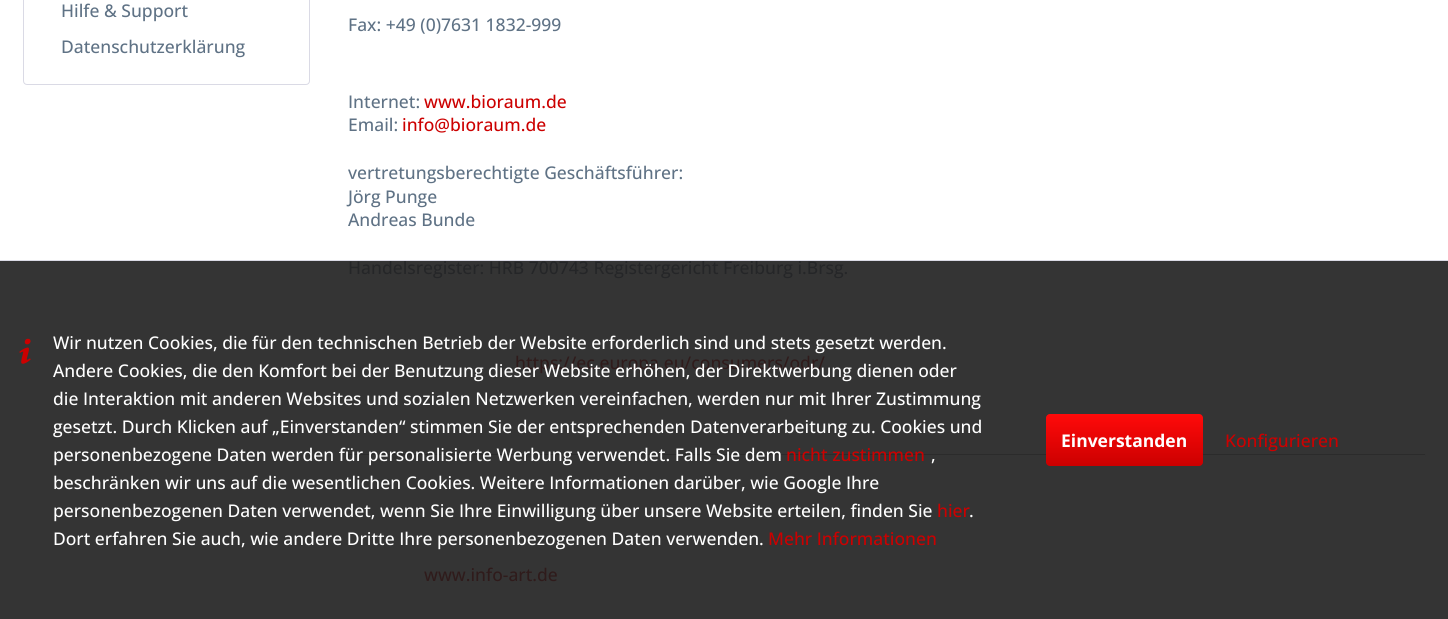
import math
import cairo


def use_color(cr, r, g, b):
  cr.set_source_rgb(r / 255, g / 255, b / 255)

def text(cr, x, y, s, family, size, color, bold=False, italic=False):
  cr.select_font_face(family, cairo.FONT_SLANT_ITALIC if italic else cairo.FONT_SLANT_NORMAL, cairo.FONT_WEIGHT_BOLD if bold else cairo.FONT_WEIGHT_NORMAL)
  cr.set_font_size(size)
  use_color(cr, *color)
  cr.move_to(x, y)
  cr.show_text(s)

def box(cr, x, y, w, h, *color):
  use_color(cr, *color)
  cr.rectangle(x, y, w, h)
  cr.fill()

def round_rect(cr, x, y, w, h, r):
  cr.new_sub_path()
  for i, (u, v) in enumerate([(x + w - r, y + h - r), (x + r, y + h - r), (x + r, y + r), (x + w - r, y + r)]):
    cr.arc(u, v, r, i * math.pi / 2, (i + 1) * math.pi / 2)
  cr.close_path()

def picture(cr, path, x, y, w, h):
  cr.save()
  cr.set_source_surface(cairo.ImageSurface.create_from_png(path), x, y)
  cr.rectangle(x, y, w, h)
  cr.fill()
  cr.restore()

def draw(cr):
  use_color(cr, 255, 255, 255)
  cr.paint()
  box(cr, 0, 261, 1448, 358, 52, 52, 52)
  round_rect(cr, 23.5, -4.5, 286, 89, 3.5)
  use_color(cr, 218, 218, 229)
  cr.set_line_width(1)
  cr.stroke()
  box(cr, 348, 454, 1078, 1, 43, 43, 43)
  box(cr, 1425, 454, 1, 3, 51, 51, 51)
  box(cr, 348, 454, 1, 3, 43, 43, 43)
  picture(cr, "img_01.png", 19, 338, 12, 26)
  gradient = cairo.LinearGradient(1124, 414, 1124, 466)
  gradient.add_color_stop_rgba(0, 1, 0.039, 0.039, 1)
  gradient.add_color_stop_rgba(1, 0.8, 0, 0, 1)
  cr.set_source(gradient)
  round_rect(cr, 1046, 414, 157, 52, 4)
  cr.fill()
  text(cr, 61, 17, "Hilfe & Support", "Open Sans Medium", 17.5, (95, 114, 133))
  text(cr, 61, 53, "Datenschutzerklärung", "Open Sans Medium", 17.5, (95, 114, 133))
  text(cr, 348, 31, "Fax: +49 (0)7631 1832-999", "Open Sans Medium", 17.5, (95, 114, 133))
  text(cr, 348, 108, "Internet:", "Open Sans Medium", 17.5, (95, 114, 133))
  text(cr, 424, 108, "www.bioraum.de", "Open Sans Medium", 17.5, (204, 0, 0))
  text(cr, 348, 131, "Email:", "Open Sans Medium", 17.5, (95, 114, 133))
  text(cr, 402, 131, "info@bioraum.de", "Open Sans Medium", 17.5, (204, 0, 0))
  text(cr, 348, 179, "vertretungsberechtigte Geschäftsführer:", "Open Sans Medium", 17.5, (95, 114, 133))
  text(cr, 348, 203, "Jörg Punge", "Open Sans Medium", 17.5, (95, 114, 133))
  text(cr, 348, 226, "Andreas Bunde", "Open Sans Medium", 17.5, (95, 114, 133))
  text(cr, 348, 274, "Handelsregister: HRB 700743 Registergericht Freiburg i.Brsg.", "Open Sans Medium", 17.5, (37, 38, 40))
  text(cr, 515, 369, "https://ec.europa.eu/consumers/odr/", "Open Sans Medium", 17.5, (47, 27, 27))
  text(cr, 424, 581, "www.info-art.de", "Open Sans Medium", 17.5, (47, 27, 27))
  box(cr, 0, 260, 1448, 1, 218, 218, 229)
  text(cr, 53, 349, "Wir nutzen Cookies, die für den technischen Betrieb der Website erforderlich sind und stets gesetzt werden.", "Open Sans Medium", 17.5, (255, 255, 255))
  text(cr, 53, 377, "Andere Cookies, die den Komfort bei der Benutzung dieser Website erhöhen, der Direktwerbung dienen oder", "Open Sans Medium", 17.5, (255, 255, 255))
  text(cr, 53, 405, "die Interaktion mit anderen Websites und sozialen Netzwerken vereinfachen, werden nur mit Ihrer Zustimmung", "Open Sans Medium", 17.5, (255, 255, 255))
  text(cr, 53, 433, "gesetzt. Durch Klicken auf „Einverstanden“ stimmen Sie der entsprechenden Datenverarbeitung zu. Cookies und", "Open Sans Medium", 17.5, (255, 255, 255))
  text(cr, 53, 461, "personenbezogene Daten werden für personalisierte Werbung verwendet. Falls Sie dem", "Open Sans Medium", 17.5, (255, 255, 255))
  text(cr, 786, 461, "nicht zustimmen", "Open Sans Medium", 17.5, (204, 0, 0))
  text(cr, 931, 461, ",", "Open Sans Medium", 17.5, (255, 255, 255))
  text(cr, 53, 489, "beschränken wir uns auf die wesentlichen Cookies. Weitere Informationen darüber, wie Google Ihre", "Open Sans Medium", 17.5, (255, 255, 255))
  text(cr, 53, 517, "personenbezogenen Daten verwendet, wenn Sie Ihre Einwilligung über unsere Website erteilen, finden Sie", "Open Sans Medium", 17.5, (255, 255, 255))
  text(cr, 937, 517, "hier", "Open Sans Medium", 17.5, (204, 0, 0))
  text(cr, 969, 517, ".", "Open Sans Medium", 17.5, (255, 255, 255))
  text(cr, 53, 545, "Dort erfahren Sie auch, wie andere Dritte Ihre personenbezogenen Daten verwenden.", "Open Sans Medium", 17.5, (255, 255, 255))
  text(cr, 768, 545, "Mehr Informationen", "Open Sans Medium", 17.5, (204, 0, 0))
  text(cr, 1061, 447, "Einverstanden", "Open Sans", 17.5, (255, 255, 255), bold=True)
  text(cr, 1225, 447, "Konfigurieren", "Open Sans Medium", 17.5, (204, 0, 0))


surface = cairo.ImageSurface(cairo.FORMAT_RGB24, 1448, 619)
cr = cairo.Context(surface)
options = cairo.FontOptions()
options.set_hint_metrics(cairo.HINT_METRICS_OFF)
options.set_hint_style(cairo.HINT_STYLE_NONE)
cr.set_font_options(options)
cr.set_miter_limit(4)
draw(cr)
surface.write_to_png("out.png")
